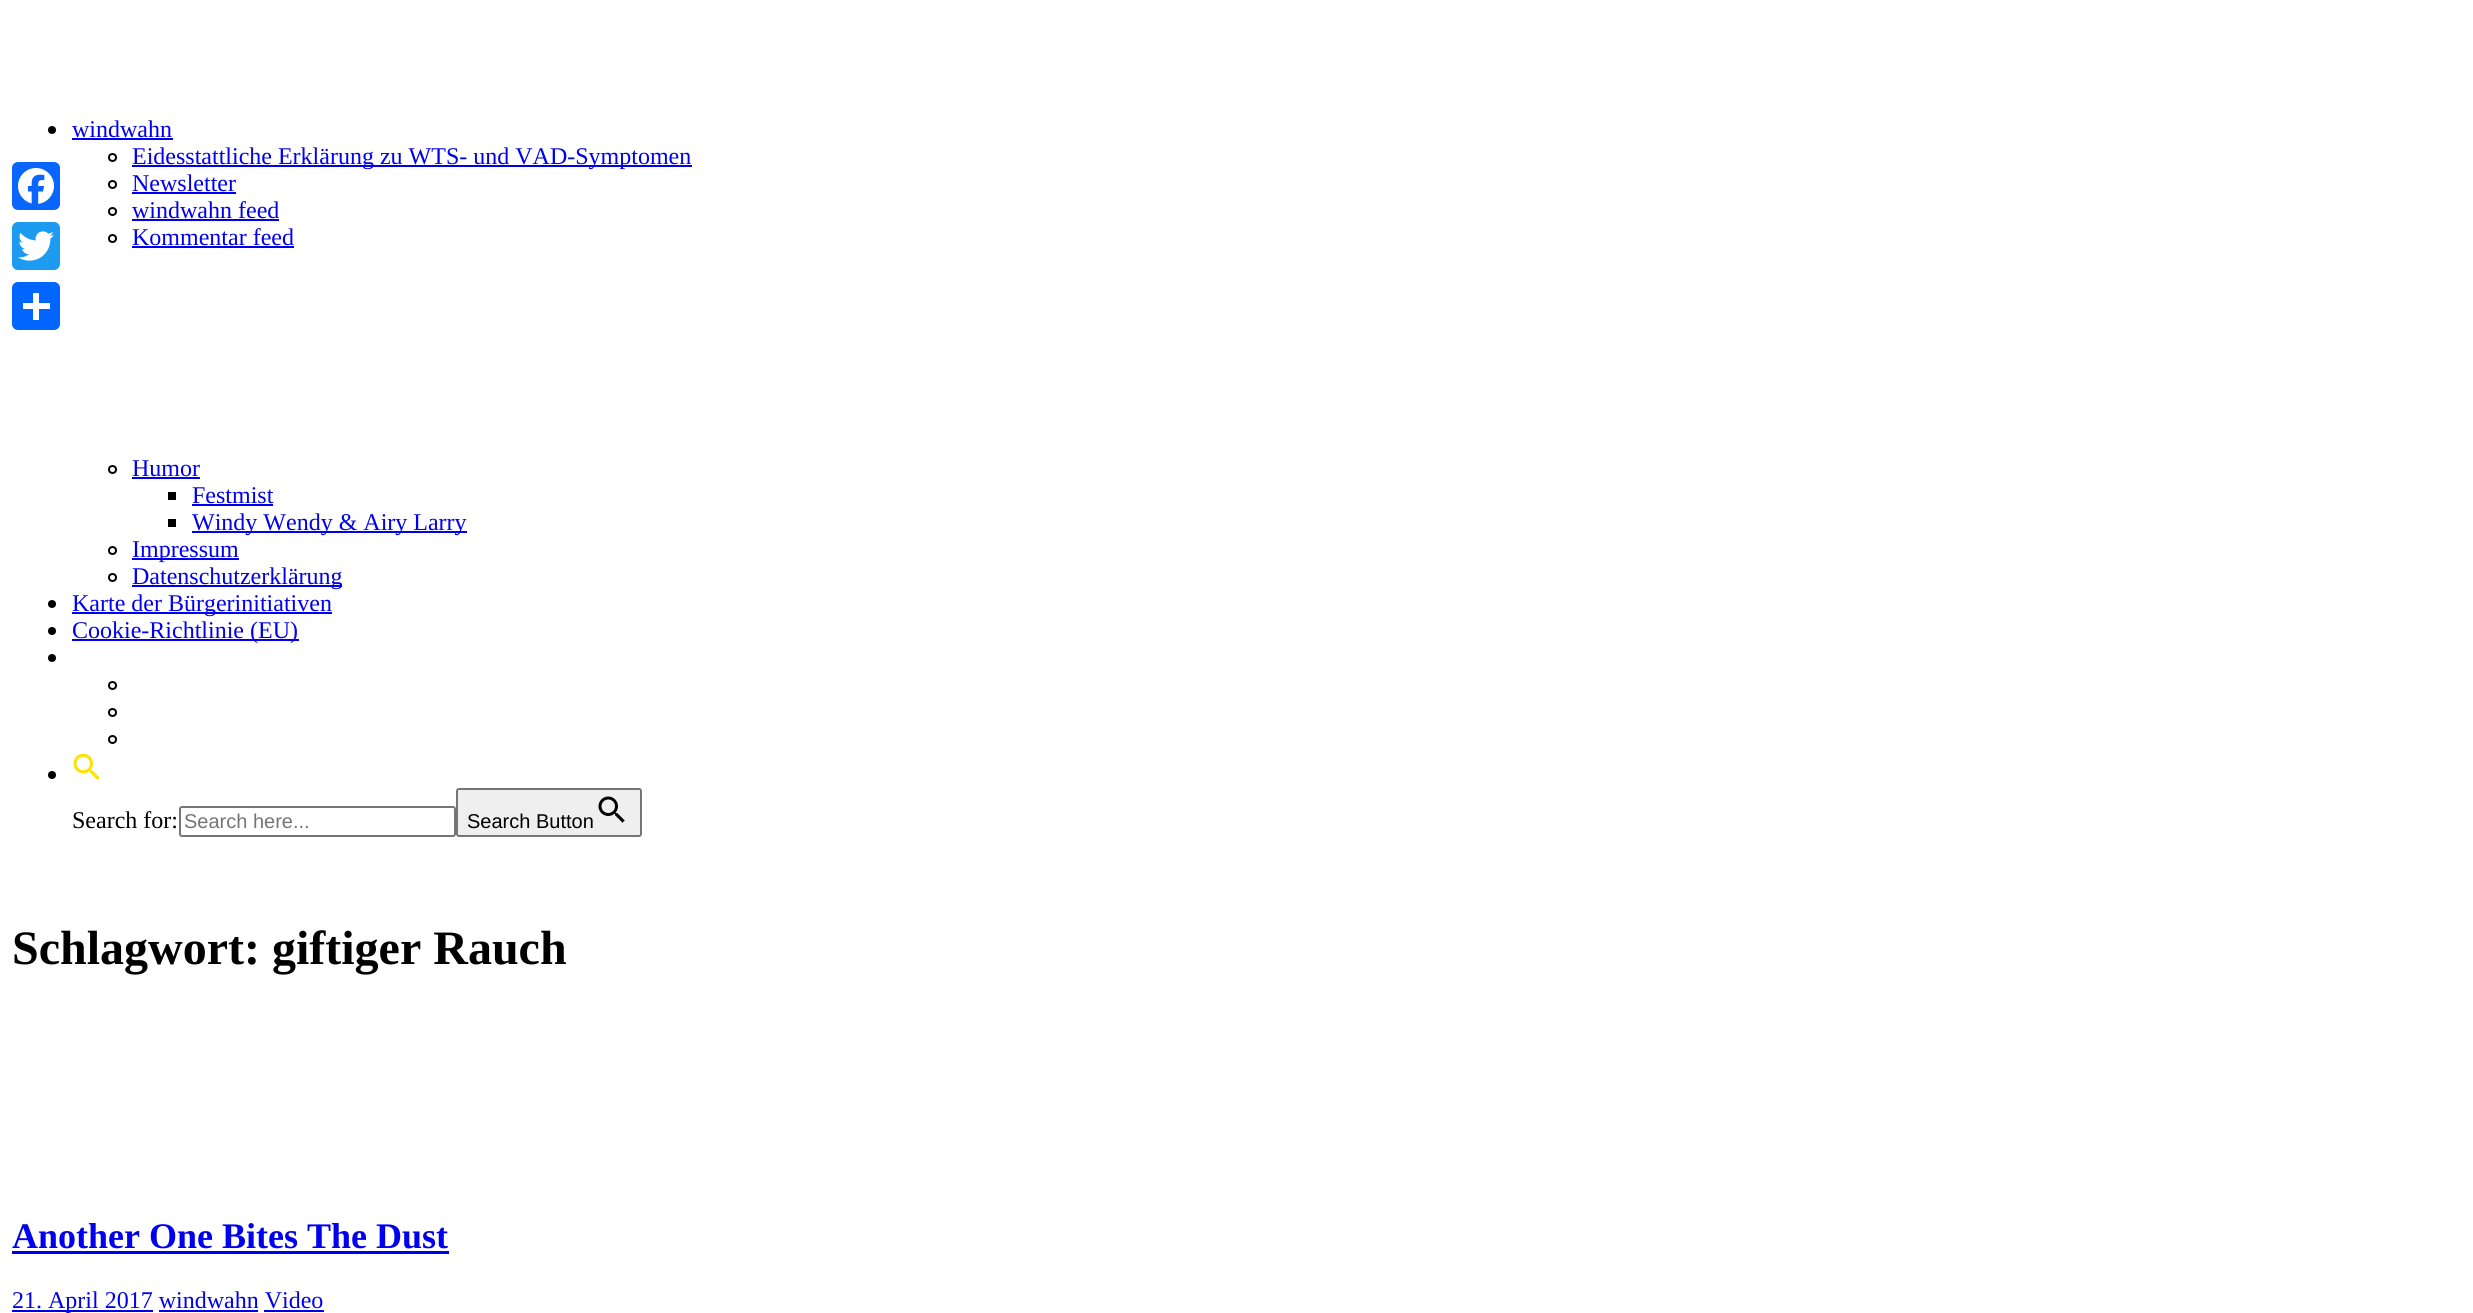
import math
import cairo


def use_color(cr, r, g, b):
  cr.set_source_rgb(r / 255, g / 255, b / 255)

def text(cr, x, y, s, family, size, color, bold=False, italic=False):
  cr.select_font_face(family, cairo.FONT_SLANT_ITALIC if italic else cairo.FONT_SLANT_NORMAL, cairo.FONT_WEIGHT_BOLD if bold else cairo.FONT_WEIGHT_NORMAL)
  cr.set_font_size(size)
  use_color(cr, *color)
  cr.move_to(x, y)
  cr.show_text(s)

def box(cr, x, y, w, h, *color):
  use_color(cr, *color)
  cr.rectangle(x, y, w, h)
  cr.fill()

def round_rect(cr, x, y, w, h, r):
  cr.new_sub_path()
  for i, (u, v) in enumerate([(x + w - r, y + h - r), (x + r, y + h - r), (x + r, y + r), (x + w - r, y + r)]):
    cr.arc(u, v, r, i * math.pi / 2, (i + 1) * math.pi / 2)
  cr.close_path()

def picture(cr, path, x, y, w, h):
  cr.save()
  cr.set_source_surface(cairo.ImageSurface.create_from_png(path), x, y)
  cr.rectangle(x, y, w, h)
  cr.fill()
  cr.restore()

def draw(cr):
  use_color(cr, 255, 255, 255)
  cr.paint()
  use_color(cr, 0, 0, 0)
  cr.arc(52, 130, 4, 0, 2 * math.pi)
  cr.fill()
  box(cr, 72, 138, 101, 2, 0, 0, 238)
  cr.arc(112.5, 157.5, 3.5, 0, 2 * math.pi)
  use_color(cr, 0, 0, 0)
  cr.stroke()
  box(cr, 132, 165, 560, 2, 0, 0, 238)
  cr.arc(112.5, 184.5, 3.5, 0, 2 * math.pi)
  use_color(cr, 0, 0, 0)
  cr.stroke()
  box(cr, 132, 192, 104, 2, 0, 0, 238)
  cr.arc(112.5, 211.5, 3.5, 0, 2 * math.pi)
  use_color(cr, 0, 0, 0)
  cr.stroke()
  box(cr, 132, 219, 147, 2, 0, 0, 238)
  cr.arc(112.5, 238.5, 3.5, 0, 2 * math.pi)
  use_color(cr, 0, 0, 0)
  cr.stroke()
  box(cr, 132, 246, 162, 2, 0, 0, 238)
  cr.arc(112.5, 469.5, 3.5, 0, 2 * math.pi)
  use_color(cr, 0, 0, 0)
  cr.stroke()
  box(cr, 132, 477, 68, 2, 0, 0, 238)
  box(cr, 168, 492, 8, 8, 0, 0, 0)
  box(cr, 192, 504, 81, 2, 0, 0, 238)
  box(cr, 168, 519, 8, 8, 0, 0, 0)
  box(cr, 192, 531, 275, 2, 0, 0, 238)
  cr.arc(112.5, 550.5, 3.5, 0, 2 * math.pi)
  use_color(cr, 0, 0, 0)
  cr.stroke()
  box(cr, 132, 558, 107, 2, 0, 0, 238)
  cr.arc(112.5, 577.5, 3.5, 0, 2 * math.pi)
  use_color(cr, 0, 0, 0)
  cr.stroke()
  box(cr, 132, 585, 210, 2, 0, 0, 238)
  use_color(cr, 0, 0, 0)
  cr.arc(52, 604, 4, 0, 2 * math.pi)
  cr.fill()
  box(cr, 72, 612, 260, 2, 0, 0, 238)
  use_color(cr, 0, 0, 0)
  cr.arc(52, 631, 4, 0, 2 * math.pi)
  cr.fill()
  box(cr, 72, 639, 227, 2, 0, 0, 238)
  use_color(cr, 0, 0, 0)
  cr.arc(52, 658, 4, 0, 2 * math.pi)
  cr.fill()
  cr.arc(112.5, 685.5, 3.5, 0, 2 * math.pi)
  cr.stroke()
  cr.arc(112.5, 712.5, 3.5, 0, 2 * math.pi)
  cr.stroke()
  cr.arc(112.5, 739.5, 3.5, 0, 2 * math.pi)
  cr.stroke()
  cr.arc(52, 775, 4, 0, 2 * math.pi)
  cr.fill()
  picture(cr, "img_01.png", 73, 753, 27, 27)
  round_rect(cr, 180, 807, 275, 29, 2)
  use_color(cr, 118, 118, 118)
  cr.stroke()
  use_color(cr, 239, 239, 239)
  round_rect(cr, 457, 789, 184, 47, 2)
  cr.fill_preserve()
  use_color(cr, 118, 118, 118)
  cr.stroke()
  picture(cr, "img_02.png", 598, 796, 27, 27)
  box(cr, 12, 1251, 437, 3, 0, 0, 238)
  box(cr, 12, 1310, 141, 2, 0, 0, 238)
  box(cr, 159, 1310, 99, 2, 0, 0, 238)
  box(cr, 264, 1310, 60, 2, 0, 0, 238)
  use_color(cr, 8, 102, 255)
  round_rect(cr, 12, 162, 48, 48, 6)
  cr.fill()
  picture(cr, "img_03.png", 18, 168, 36, 36)
  use_color(cr, 29, 155, 240)
  round_rect(cr, 12, 222, 48, 48, 6)
  cr.fill()
  picture(cr, "img_04.png", 18, 231, 36, 30)
  use_color(cr, 1, 102, 255)
  round_rect(cr, 12, 282, 48, 48, 6)
  cr.fill()
  box(cr, 33, 293, 6, 27, 255, 255, 255)
  box(cr, 23, 303, 27, 6, 255, 255, 255)
  text(cr, 72, 137, "windwahn", "Liberation Serif", 24, (0, 0, 238))
  text(cr, 132, 164, "Eidesstattliche Erklärung zu WTS- und VAD-Symptomen", "Liberation Serif", 24, (0, 0, 238))
  text(cr, 132, 191, "Newsletter", "Liberation Serif", 24, (0, 0, 238))
  text(cr, 132, 218, "windwahn feed", "Liberation Serif", 24, (0, 0, 238))
  text(cr, 132, 245, "Kommentar feed", "Liberation Serif", 24, (0, 0, 238))
  text(cr, 132, 476, "Humor", "Liberation Serif", 24, (0, 0, 238))
  text(cr, 192, 503, "Festmist", "Liberation Serif", 24, (0, 0, 238))
  text(cr, 192, 530, "Windy Wendy & Airy Larry", "Liberation Serif", 24, (0, 0, 238))
  text(cr, 132, 557, "Impressum", "Liberation Serif", 24, (0, 0, 238))
  text(cr, 132, 584, "Datenschutzerklärung", "Liberation Serif", 24, (0, 0, 238))
  text(cr, 72, 611, "Karte der Bürgerinitiativen", "Liberation Serif", 24, (0, 0, 238))
  text(cr, 72, 638, "Cookie-Richtlinie (EU)", "Liberation Serif", 24, (0, 0, 238))
  text(cr, 72, 828, "Search for:", "Liberation Serif", 24, (0, 0, 0))
  text(cr, 184, 828, "Search here...", "Liberation Sans", 20, (117, 117, 117))
  text(cr, 467, 828, "Search Button", "Liberation Sans", 20, (0, 0, 0))
  text(cr, 12, 964, "Schlagwort: giftiger Rauch", "Liberation Serif", 48, (0, 0, 0), bold=True)
  text(cr, 12, 1248, "Another One Bites The Dust", "Liberation Serif", 36, (0, 0, 238), bold=True)
  text(cr, 12, 1308, "21. April 2017 windwahn Video", "Liberation Serif", 24, (0, 0, 238))


surface = cairo.ImageSurface(cairo.FORMAT_RGB24, 2473, 1313)
cr = cairo.Context(surface)
options = cairo.FontOptions()
options.set_hint_metrics(cairo.HINT_METRICS_OFF)
options.set_hint_style(cairo.HINT_STYLE_NONE)
cr.set_font_options(options)
cr.set_miter_limit(4)
draw(cr)
surface.write_to_png("out.png")
